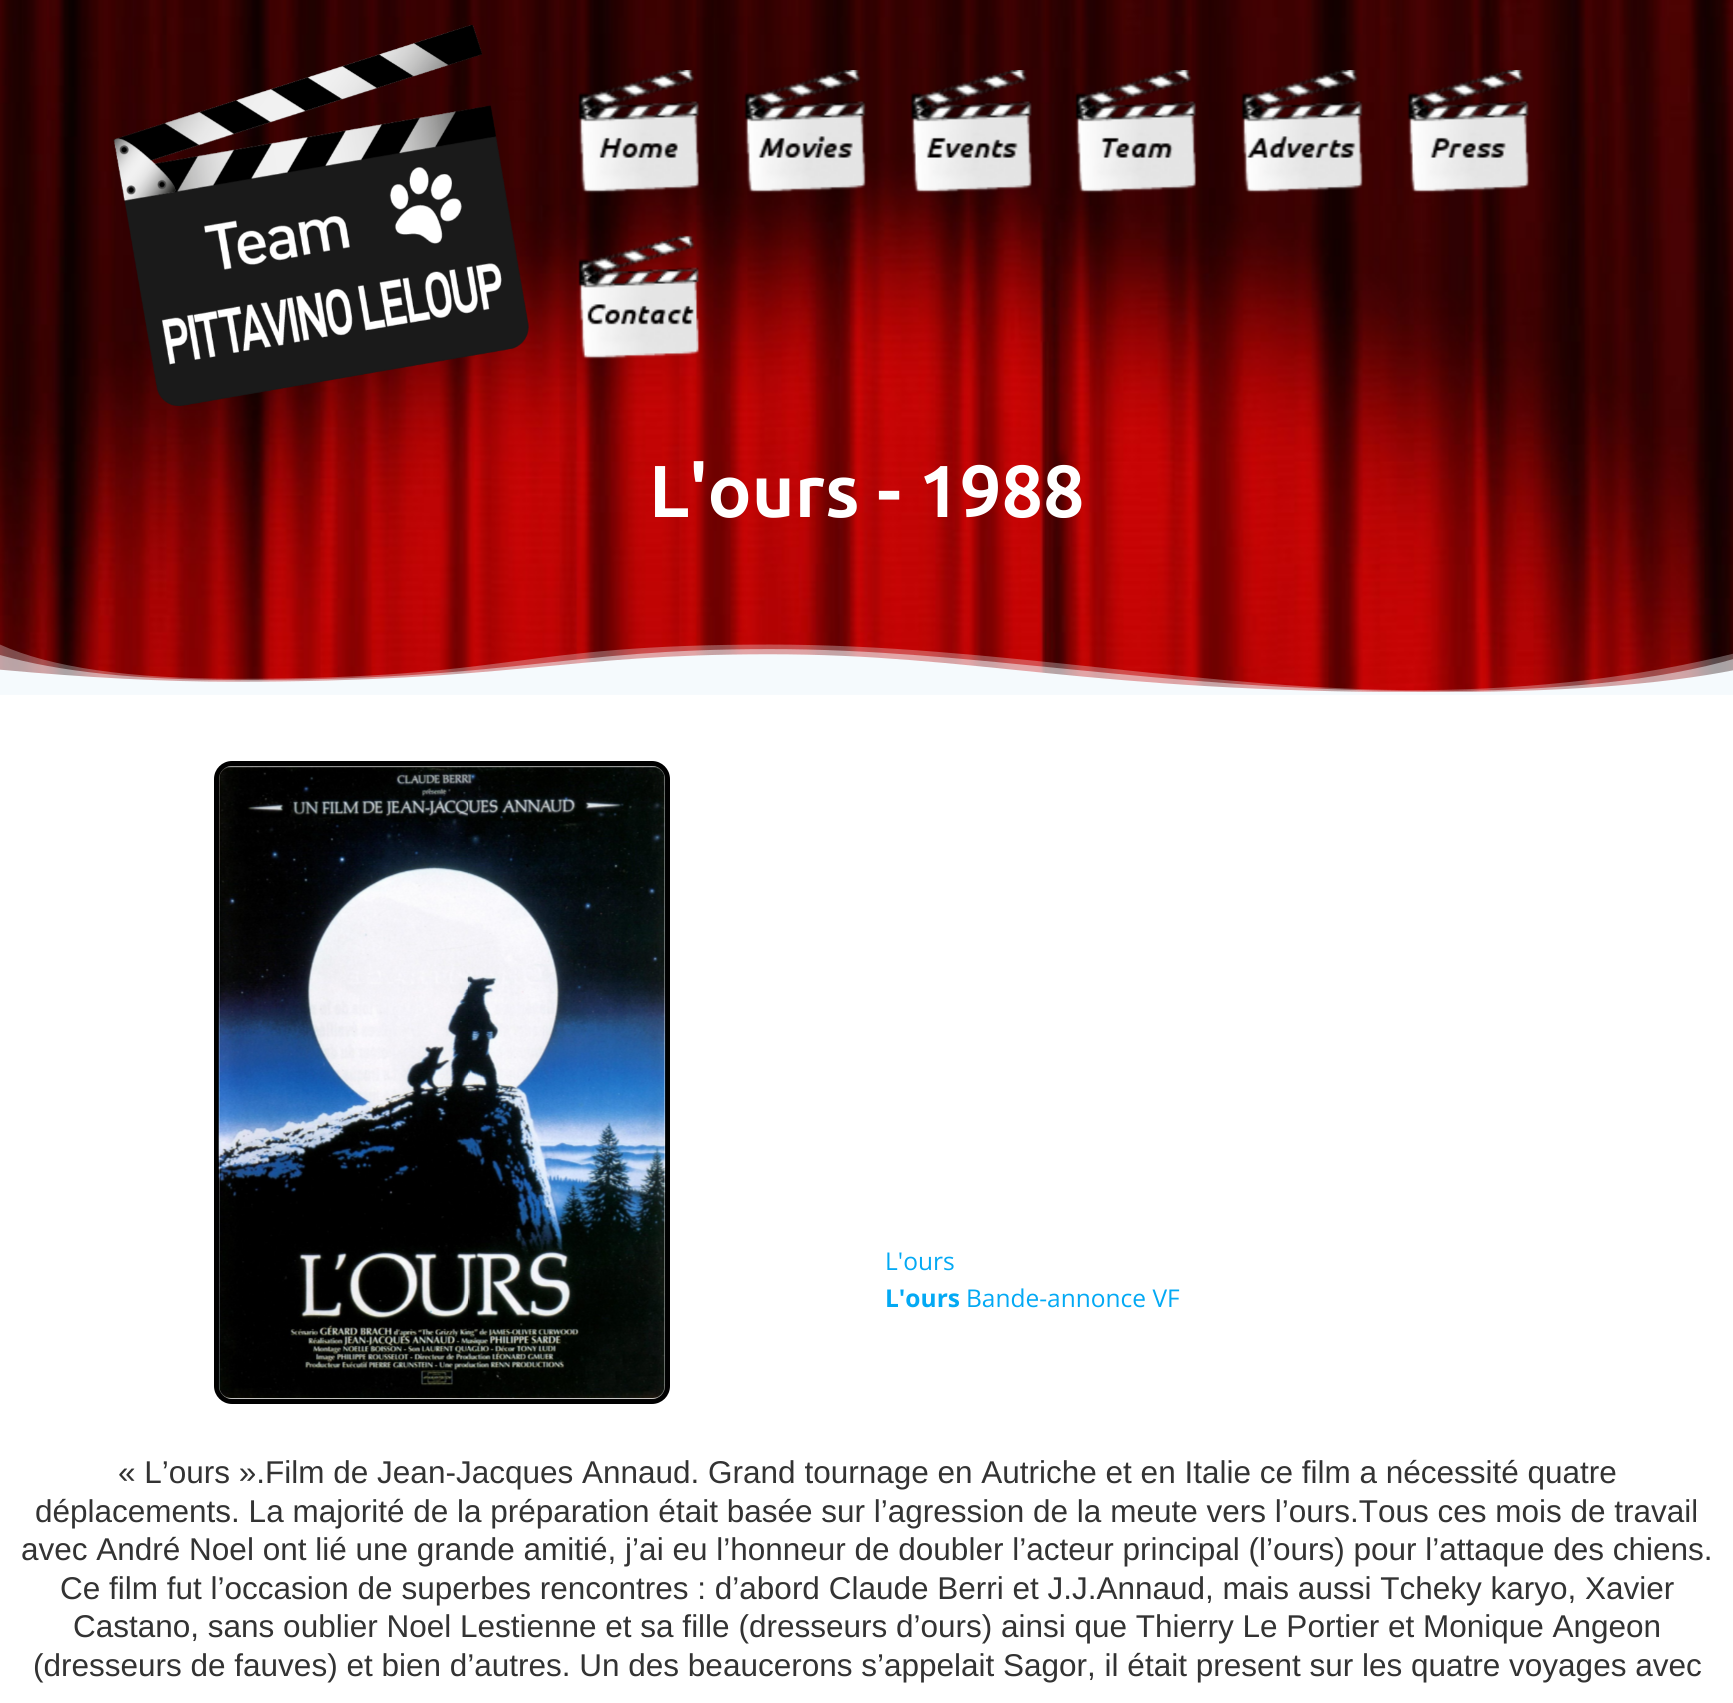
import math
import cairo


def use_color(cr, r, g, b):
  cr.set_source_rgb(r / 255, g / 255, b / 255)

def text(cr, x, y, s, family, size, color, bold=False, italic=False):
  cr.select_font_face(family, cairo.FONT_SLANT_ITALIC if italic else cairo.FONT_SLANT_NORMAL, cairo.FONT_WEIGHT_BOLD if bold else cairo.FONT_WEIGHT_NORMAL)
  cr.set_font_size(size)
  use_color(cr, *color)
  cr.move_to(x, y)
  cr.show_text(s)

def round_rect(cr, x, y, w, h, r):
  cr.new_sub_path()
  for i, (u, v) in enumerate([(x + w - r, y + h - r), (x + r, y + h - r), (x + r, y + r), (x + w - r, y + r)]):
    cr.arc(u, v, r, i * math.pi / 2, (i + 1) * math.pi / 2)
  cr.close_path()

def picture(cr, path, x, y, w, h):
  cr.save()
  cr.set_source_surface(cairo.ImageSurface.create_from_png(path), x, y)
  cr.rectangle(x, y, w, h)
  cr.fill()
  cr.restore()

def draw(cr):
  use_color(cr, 255, 255, 255)
  cr.paint()
  picture(cr, "img_09.png", 0, 0, 1733, 692)
  picture(cr, "img_01.png", 113, 25, 416, 381)
  picture(cr, "img_02.png", 578, 70, 122, 123)
  picture(cr, "img_03.png", 744, 70, 122, 123)
  picture(cr, "img_04.png", 910, 70, 122, 123)
  picture(cr, "img_05.png", 1075, 70, 122, 123)
  picture(cr, "img_06.png", 1241, 70, 122, 123)
  picture(cr, "img_07.png", 1407, 70, 123, 123)
  picture(cr, "img_08.png", 578, 235, 122, 124)
  picture(cr, "img_10.png", 0, 644, 1733, 51)
  round_rect(cr, 216.5, 763.5, 451, 638, 15.5)
  use_color(cr, 0, 0, 0)
  cr.set_line_width(5)
  cr.stroke()
  picture(cr, "img_11.png", 218, 766, 448, 633)
  text(cr, 649, 517, "L'ours - 1988", "Ubuntu", 73.5, (255, 255, 255), bold=True)
  text(cr, 885, 1270, "L'ours", "Open Sans", 24.5, (3, 169, 244))
  text(cr, 885, 1307, "L'ours", "Open Sans", 24.5, (3, 169, 244), bold=True)
  text(cr, 966, 1307, "Bande-annonce VF", "Open Sans", 24.5, (3, 169, 244))
  text(cr, 118, 1483, "« L’ours ».Film de Jean-Jacques Annaud. Grand tournage en Autriche et en Italie ce film a nécessité quatre", "Liberation Sans", 31.5, (51, 51, 51))
  text(cr, 35, 1522, "déplacements. La majorité de la préparation était basée sur l’agression de la meute vers l’ours.Tous ces mois de travail", "Liberation Sans", 31.5, (51, 51, 51))
  text(cr, 21, 1560, "avec André Noel ont lié une grande amitié, j’ai eu l’honneur de doubler l’acteur principal (l’ours) pour l’attaque des chiens.", "Liberation Sans", 31.5, (51, 51, 51))
  text(cr, 60, 1599, "Ce film fut l’occasion de superbes rencontres : d’abord Claude Berri et J.J.Annaud, mais aussi Tcheky karyo, Xavier", "Liberation Sans", 31.5, (51, 51, 51))
  text(cr, 73, 1637, "Castano, sans oublier Noel Lestienne et sa fille (dresseurs d’ours) ainsi que Thierry Le Portier et Monique Angeon", "Liberation Sans", 31.5, (51, 51, 51))
  text(cr, 33, 1676, "(dresseurs de fauves) et bien d’autres. Un des beaucerons s’appelait Sagor, il était present sur les quatre voyages avec", "Liberation Sans", 31.5, (51, 51, 51))


surface = cairo.ImageSurface(cairo.FORMAT_RGB24, 1733, 1703)
cr = cairo.Context(surface)
options = cairo.FontOptions()
options.set_hint_metrics(cairo.HINT_METRICS_OFF)
options.set_hint_style(cairo.HINT_STYLE_NONE)
cr.set_font_options(options)
cr.set_miter_limit(4)
draw(cr)
surface.write_to_png("out.png")
